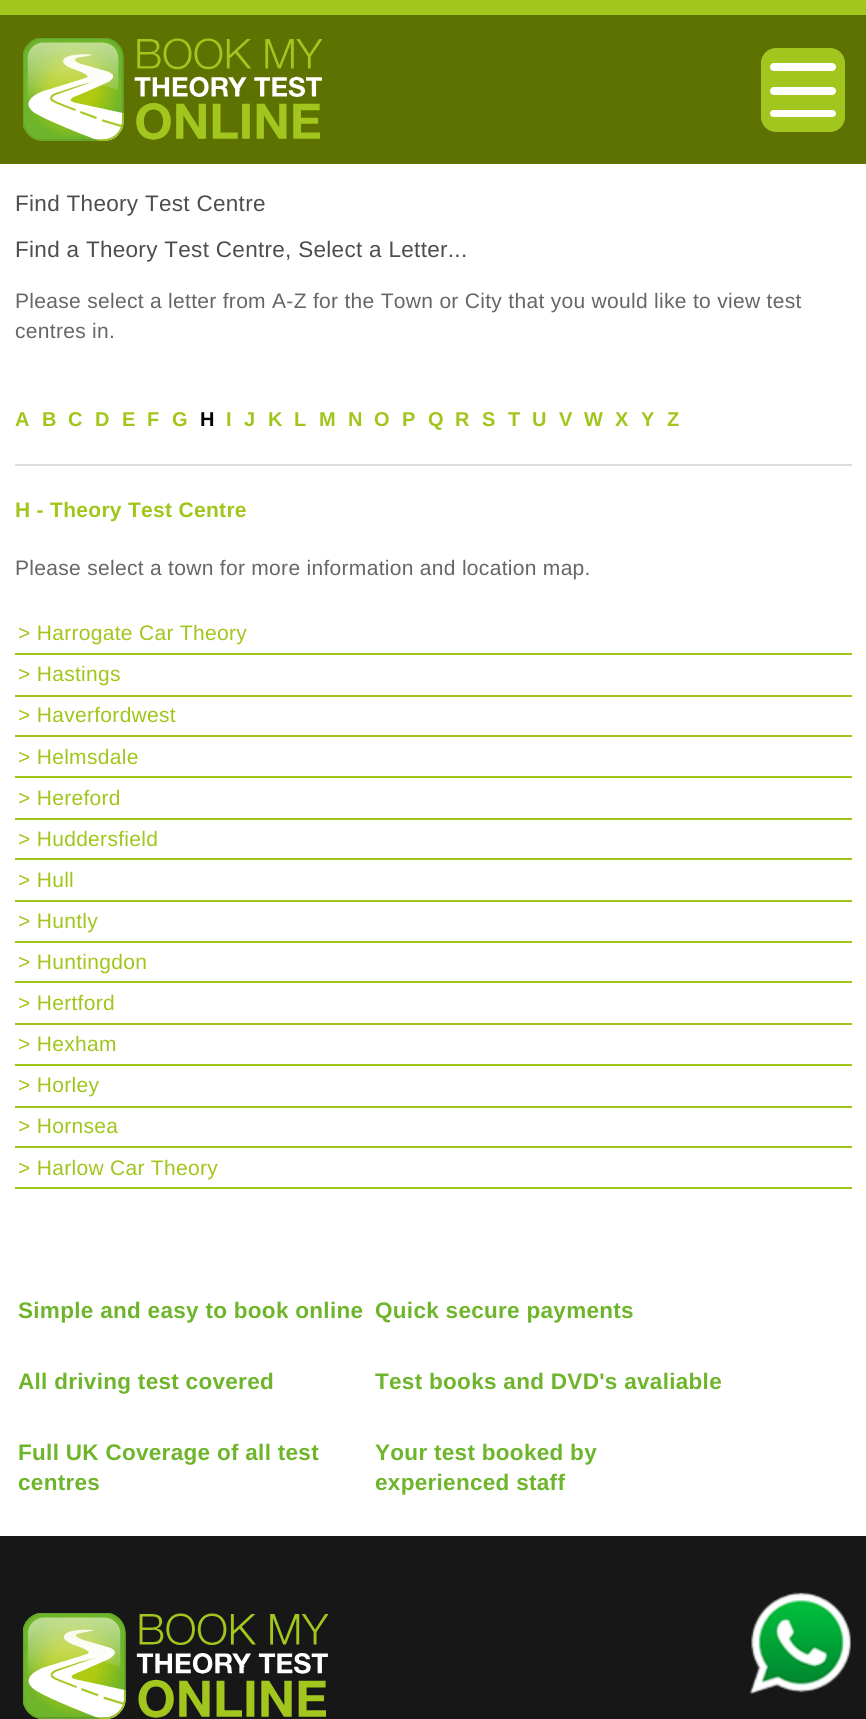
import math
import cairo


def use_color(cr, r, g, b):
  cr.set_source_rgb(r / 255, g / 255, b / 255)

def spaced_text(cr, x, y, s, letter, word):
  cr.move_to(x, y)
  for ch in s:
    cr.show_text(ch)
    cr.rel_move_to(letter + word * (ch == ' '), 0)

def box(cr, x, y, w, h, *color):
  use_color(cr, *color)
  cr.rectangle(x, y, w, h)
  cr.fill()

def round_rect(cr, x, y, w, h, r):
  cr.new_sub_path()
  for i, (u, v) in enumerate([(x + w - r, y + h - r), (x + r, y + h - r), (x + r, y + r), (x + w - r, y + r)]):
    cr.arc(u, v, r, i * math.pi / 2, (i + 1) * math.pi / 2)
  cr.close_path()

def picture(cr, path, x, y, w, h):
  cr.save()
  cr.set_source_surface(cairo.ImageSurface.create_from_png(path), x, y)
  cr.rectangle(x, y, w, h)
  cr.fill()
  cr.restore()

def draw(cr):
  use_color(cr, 255, 255, 255)
  cr.paint()
  box(cr, 0, 15, 866, 149, 93, 114, 0)
  box(cr, 0, 0, 866, 15, 162, 198, 30)
  picture(cr, "img_01.png", 23, 38, 300, 103)
  round_rect(cr, 761, 48, 84, 84, 15)
  cr.fill()
  use_color(cr, 255, 255, 255)
  round_rect(cr, 770, 63, 66, 8, 4)
  cr.fill()
  round_rect(cr, 770, 87, 66, 8, 4)
  cr.fill()
  round_rect(cr, 770, 110, 66, 7, 3.5)
  cr.fill()
  box(cr, 15, 464, 837, 2, 221, 221, 221)
  box(cr, 15, 653, 837, 2, 161, 197, 27)
  box(cr, 15, 695, 837, 2, 161, 197, 27)
  box(cr, 15, 735, 837, 2, 161, 197, 27)
  box(cr, 15, 776, 837, 2, 161, 197, 27)
  box(cr, 15, 818, 837, 2, 161, 197, 27)
  box(cr, 15, 858, 837, 2, 161, 197, 27)
  box(cr, 15, 900, 837, 2, 161, 197, 27)
  box(cr, 15, 941, 837, 2, 161, 197, 27)
  box(cr, 15, 981, 837, 2, 161, 197, 27)
  box(cr, 15, 1023, 837, 2, 161, 197, 27)
  box(cr, 15, 1064, 837, 2, 161, 197, 27)
  box(cr, 15, 1106, 837, 2, 161, 197, 27)
  box(cr, 15, 1146, 837, 2, 161, 197, 27)
  box(cr, 15, 1187, 837, 2, 161, 197, 27)
  box(cr, 0, 1536, 866, 183, 23, 23, 23)
  picture(cr, "img_02.png", 23, 1613, 306, 106)
  picture(cr, "img_03.png", 749, 1592, 102, 102)
  cr.select_font_face("Liberation Sans")
  cr.set_font_size(22.5)
  use_color(cr, 77, 77, 77)
  spaced_text(cr, 15, 211, "Find Theory Test Centre", 0.3, 0)
  spaced_text(cr, 15, 257, "Find a Theory Test Centre, Select a Letter...", 0.3, 0)
  cr.set_font_size(21)
  use_color(cr, 102, 102, 102)
  spaced_text(cr, 15, 308, "Please select a letter from A-Z for the Town or City that you would like to view test", 0.3, 0)
  spaced_text(cr, 15, 338, "centres in.", 0.3, 0)
  cr.select_font_face("Liberation Sans", cairo.FONT_SLANT_NORMAL, cairo.FONT_WEIGHT_BOLD)
  cr.set_font_size(20)
  use_color(cr, 161, 197, 27)
  spaced_text(cr, 15, 426, "A", 0.3, 0)
  spaced_text(cr, 42, 426, "B", 0.3, 0)
  spaced_text(cr, 68, 426, "C", 0.3, 0)
  spaced_text(cr, 95, 426, "D", 0.3, 0)
  spaced_text(cr, 122, 426, "E", 0.3, 0)
  spaced_text(cr, 147, 426, "F", 0.3, 0)
  spaced_text(cr, 172, 426, "G", 0.3, 0)
  use_color(cr, 0, 0, 0)
  spaced_text(cr, 200, 426, "H", 0.3, 0)
  use_color(cr, 161, 197, 27)
  spaced_text(cr, 226, 426, "I", 0.3, 0)
  spaced_text(cr, 244, 426, "J", 0.3, 0)
  spaced_text(cr, 268, 426, "K", 0.3, 0)
  spaced_text(cr, 294, 426, "L", 0.3, 0)
  spaced_text(cr, 319, 426, "M", 0.3, 0)
  spaced_text(cr, 348, 426, "N", 0.3, 0)
  spaced_text(cr, 374, 426, "O", 0.3, 0)
  spaced_text(cr, 402, 426, "P", 0.3, 0)
  spaced_text(cr, 428, 426, "Q", 0.3, 0)
  spaced_text(cr, 455, 426, "R", 0.3, 0)
  spaced_text(cr, 482, 426, "S", 0.3, 0)
  spaced_text(cr, 508, 426, "T", 0.3, 0)
  spaced_text(cr, 532, 426, "U", 0.3, 0)
  spaced_text(cr, 559, 426, "V", 0.3, 0)
  spaced_text(cr, 584, 426, "W", 0.3, 0)
  spaced_text(cr, 615, 426, "X", 0.3, 0)
  spaced_text(cr, 641, 426, "Y", 0.3, 0)
  spaced_text(cr, 667, 426, "Z", 0.3, 0)
  cr.set_font_size(21)
  spaced_text(cr, 15, 517, "H - Theory Test Centre", 0.3, 0)
  cr.select_font_face("Liberation Sans")
  use_color(cr, 102, 102, 102)
  spaced_text(cr, 15, 575, "Please select a town for more information and location map.", 0.3, 0)
  use_color(cr, 161, 197, 27)
  spaced_text(cr, 18, 640, "> Harrogate Car Theory", 0.3, 0)
  spaced_text(cr, 18, 681, "> Hastings", 0.3, 0)
  spaced_text(cr, 18, 722, "> Haverfordwest", 0.3, 0)
  spaced_text(cr, 18, 764, "> Helmsdale", 0.3, 0)
  spaced_text(cr, 18, 805, "> Hereford", 0.3, 0)
  spaced_text(cr, 18, 846, "> Huddersfield", 0.3, 0)
  spaced_text(cr, 18, 887, "> Hull", 0.3, 0)
  spaced_text(cr, 18, 928, "> Huntly", 0.3, 0)
  spaced_text(cr, 18, 969, "> Huntingdon", 0.3, 0)
  spaced_text(cr, 18, 1010, "> Hertford", 0.3, 0)
  spaced_text(cr, 18, 1051, "> Hexham", 0.3, 0)
  spaced_text(cr, 18, 1092, "> Horley", 0.3, 0)
  spaced_text(cr, 18, 1133, "> Hornsea", 0.3, 0)
  spaced_text(cr, 18, 1175, "> Harlow Car Theory", 0.3, 0)
  cr.select_font_face("Liberation Sans", cairo.FONT_SLANT_NORMAL, cairo.FONT_WEIGHT_BOLD)
  cr.set_font_size(22.5)
  use_color(cr, 110, 181, 44)
  spaced_text(cr, 18, 1318, "Simple and easy to book online", 0.3, 0)
  spaced_text(cr, 375, 1318, "Quick secure payments", 0.3, 0)
  spaced_text(cr, 18, 1389, "All driving test covered", 0.3, 0)
  spaced_text(cr, 375, 1389, "Test books and DVD's avaliable", 0.3, 0)
  spaced_text(cr, 18, 1460, "Full UK Coverage of all test", 0.3, 0)
  spaced_text(cr, 18, 1490, "centres", 0.3, 0)
  spaced_text(cr, 375, 1460, "Your test booked by", 0.3, 0)
  spaced_text(cr, 375, 1490, "experienced staff", 0.3, 0)


surface = cairo.ImageSurface(cairo.FORMAT_RGB24, 866, 1719)
cr = cairo.Context(surface)
options = cairo.FontOptions()
options.set_hint_metrics(cairo.HINT_METRICS_OFF)
options.set_hint_style(cairo.HINT_STYLE_NONE)
cr.set_font_options(options)
cr.set_miter_limit(4)
draw(cr)
surface.write_to_png("out.png")
